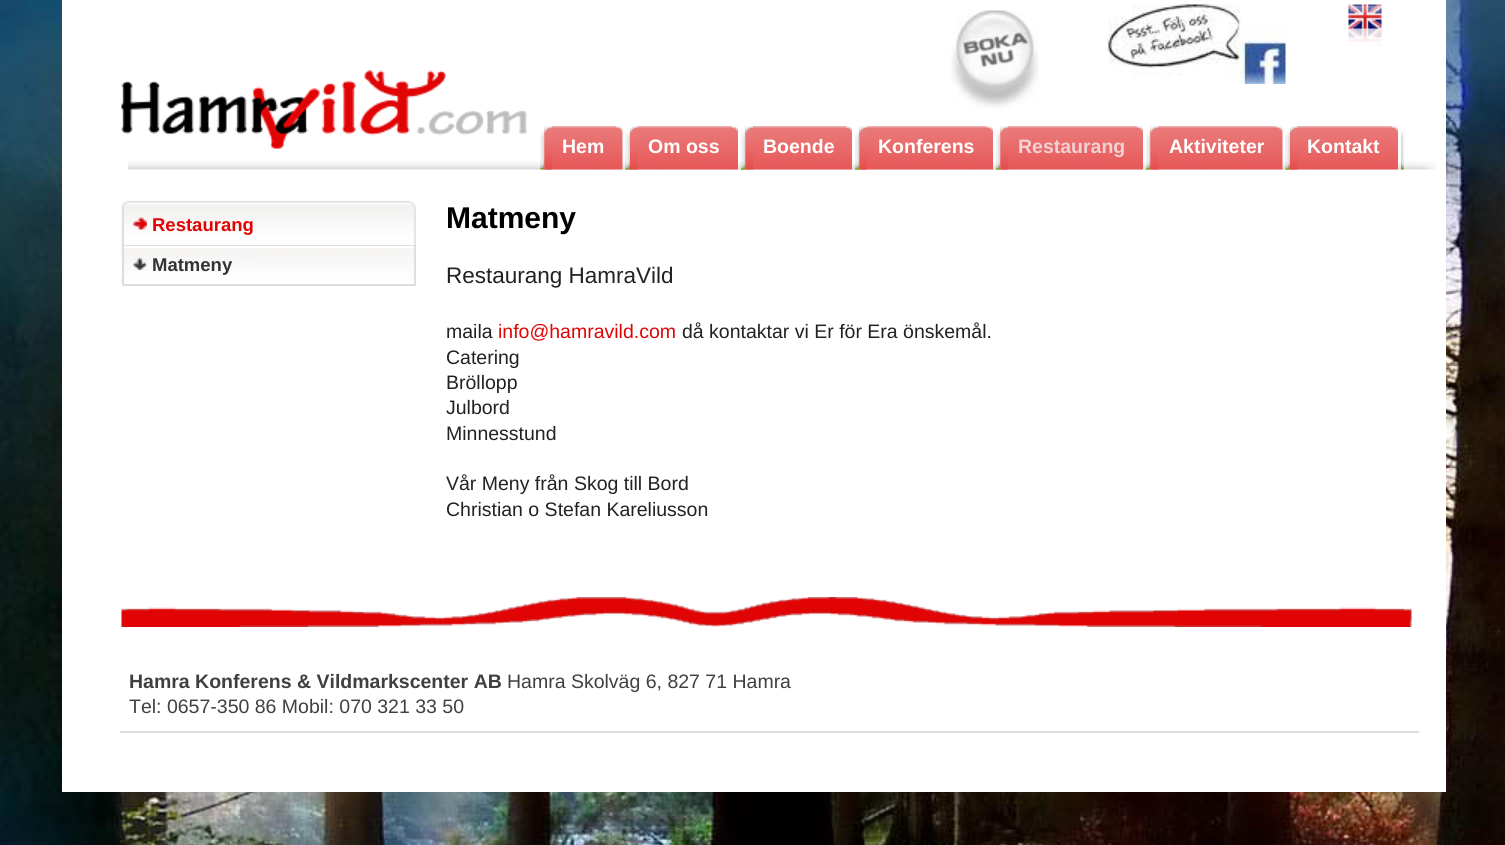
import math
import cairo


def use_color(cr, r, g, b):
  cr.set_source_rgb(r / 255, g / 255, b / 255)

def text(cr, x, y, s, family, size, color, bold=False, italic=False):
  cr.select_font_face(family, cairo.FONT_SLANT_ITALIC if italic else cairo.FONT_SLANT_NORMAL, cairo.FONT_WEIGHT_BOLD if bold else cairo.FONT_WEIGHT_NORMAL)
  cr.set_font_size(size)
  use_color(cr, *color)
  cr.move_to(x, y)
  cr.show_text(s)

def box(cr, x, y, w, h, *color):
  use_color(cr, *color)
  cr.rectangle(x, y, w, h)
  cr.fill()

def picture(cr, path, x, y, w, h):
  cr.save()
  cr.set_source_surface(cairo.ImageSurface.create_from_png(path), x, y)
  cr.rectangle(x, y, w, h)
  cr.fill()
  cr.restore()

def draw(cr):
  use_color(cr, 255, 255, 255)
  cr.paint()
  picture(cr, "img_01.png", 0, 0, 1505, 845)
  box(cr, 62, 0, 1384, 792, 255, 255, 255)
  picture(cr, "img_02.png", 121, 70, 406, 79)
  picture(cr, "img_03.png", 951, 10, 88, 99)
  picture(cr, "img_04.png", 1108, 4, 178, 80)
  picture(cr, "img_05.png", 1348, 4, 34, 42)
  picture(cr, "img_06.png", 128, 161, 1309, 9)
  picture(cr, "img_07.png", 540, 130, 5, 40)
  picture(cr, "img_08.png", 625, 130, 4, 40)
  picture(cr, "img_09.png", 544, 126, 79, 44)
  picture(cr, "img_10.png", 544, 126, 8, 44)
  picture(cr, "img_11.png", 625, 130, 5, 40)
  picture(cr, "img_12.png", 741, 169, 3, 1)
  picture(cr, "img_13.png", 630, 126, 108, 44)
  picture(cr, "img_14.png", 630, 126, 8, 44)
  picture(cr, "img_15.png", 741, 130, 5, 40)
  picture(cr, "img_16.png", 855, 169, 3, 1)
  picture(cr, "img_17.png", 745, 126, 107, 44)
  picture(cr, "img_18.png", 745, 126, 8, 44)
  picture(cr, "img_19.png", 855, 130, 5, 40)
  picture(cr, "img_20.png", 996, 169, 3, 1)
  picture(cr, "img_21.png", 859, 126, 134, 44)
  picture(cr, "img_22.png", 859, 126, 8, 44)
  picture(cr, "img_19.png", 996, 130, 5, 40)
  picture(cr, "img_23.png", 1146, 169, 3, 1)
  picture(cr, "img_24.png", 1000, 126, 143, 44)
  picture(cr, "img_25.png", 1000, 126, 8, 44)
  picture(cr, "img_15.png", 1146, 130, 5, 40)
  picture(cr, "img_26.png", 1285, 130, 4, 40)
  picture(cr, "img_27.png", 1150, 126, 133, 44)
  picture(cr, "img_28.png", 1150, 126, 8, 44)
  picture(cr, "img_29.png", 1285, 130, 5, 40)
  picture(cr, "img_30.png", 1401, 130, 3, 40)
  picture(cr, "img_31.png", 1290, 126, 108, 44)
  picture(cr, "img_32.png", 1290, 126, 8, 44)
  picture(cr, "img_33.png", 121, 201, 295, 6)
  picture(cr, "img_34.png", 121, 201, 7, 6)
  picture(cr, "img_35.png", 121, 207, 295, 78)
  picture(cr, "img_36.png", 124, 207, 292, 38)
  box(cr, 122, 245, 294, 1, 222, 222, 222)
  box(cr, 122, 207, 2, 39, 222, 222, 222)
  picture(cr, "img_37.png", 133, 217, 14, 13)
  box(cr, 124, 282, 290, 2, 255, 255, 255)
  picture(cr, "img_38.png", 121, 247, 293, 35)
  box(cr, 122, 246, 294, 2, 255, 255, 255)
  box(cr, 414, 246, 2, 39, 222, 222, 222)
  box(cr, 122, 284, 294, 2, 222, 222, 222)
  box(cr, 122, 246, 2, 39, 222, 222, 222)
  picture(cr, "img_39.png", 133, 258, 14, 12)
  picture(cr, "img_40.png", 121, 597, 1291, 30)
  box(cr, 120, 731, 1299, 2, 221, 221, 221)
  text(cr, 562, 153, "Hem", "Liberation Sans", 19.5, (255, 255, 255), bold=True)
  text(cr, 648, 153, "Om oss", "Liberation Sans", 19.5, (255, 255, 255), bold=True)
  text(cr, 763, 153, "Boende", "Liberation Sans", 19.5, (255, 255, 255), bold=True)
  text(cr, 878, 153, "Konferens", "Liberation Sans", 19.5, (255, 255, 255), bold=True)
  text(cr, 1018, 153, "Restaurang", "Liberation Sans", 19.5, (240, 210, 210), bold=True)
  text(cr, 1169, 153, "Aktiviteter", "Liberation Sans", 19.5, (255, 255, 255), bold=True)
  text(cr, 1307, 153, "Kontakt", "Liberation Sans", 19.5, (255, 255, 255), bold=True)
  text(cr, 152, 231, "Restaurang", "Liberation Sans", 18.5, (225, 4, 4), bold=True)
  text(cr, 152, 271, "Matmeny", "Liberation Sans", 18.5, (51, 51, 51), bold=True)
  text(cr, 446, 228, "Matmeny", "Liberation Sans", 30, (0, 0, 0), bold=True)
  text(cr, 446, 283, "Restaurang HamraVild", "Liberation Sans", 22.5, (34, 34, 34))
  text(cr, 446, 338, "maila", "Liberation Sans", 19.5, (34, 34, 34))
  text(cr, 498, 338, "info@hamravild.com", "Liberation Sans", 19.5, (225, 4, 4))
  text(cr, 682, 338, "då kontaktar vi Er för Era önskemål.", "Liberation Sans", 19.5, (34, 34, 34))
  text(cr, 446, 364, "Catering", "Liberation Sans", 19.5, (34, 34, 34))
  text(cr, 446, 389, "Bröllopp", "Liberation Sans", 19.5, (34, 34, 34))
  text(cr, 446, 414, "Julbord", "Liberation Sans", 19.5, (34, 34, 34))
  text(cr, 446, 440, "Minnesstund", "Liberation Sans", 19.5, (34, 34, 34))
  text(cr, 446, 490, "Vår Meny från Skog till Bord", "Liberation Sans", 19.5, (34, 34, 34))
  text(cr, 446, 516, "Christian o Stefan Kareliusson", "Liberation Sans", 19.5, (34, 34, 34))
  text(cr, 129, 688, "Hamra Konferens & Vildmarkscenter AB", "Liberation Sans", 19.5, (64, 64, 64), bold=True)
  text(cr, 507, 688, "Hamra Skolväg 6, 827 71 Hamra", "Liberation Sans", 19.5, (64, 64, 64))
  text(cr, 129, 713, "Tel: 0657-350 86 Mobil: 070 321 33 50", "Liberation Sans", 19.5, (64, 64, 64))


surface = cairo.ImageSurface(cairo.FORMAT_RGB24, 1505, 845)
cr = cairo.Context(surface)
options = cairo.FontOptions()
options.set_hint_metrics(cairo.HINT_METRICS_OFF)
options.set_hint_style(cairo.HINT_STYLE_NONE)
cr.set_font_options(options)
cr.set_miter_limit(4)
draw(cr)
surface.write_to_png("out.png")
